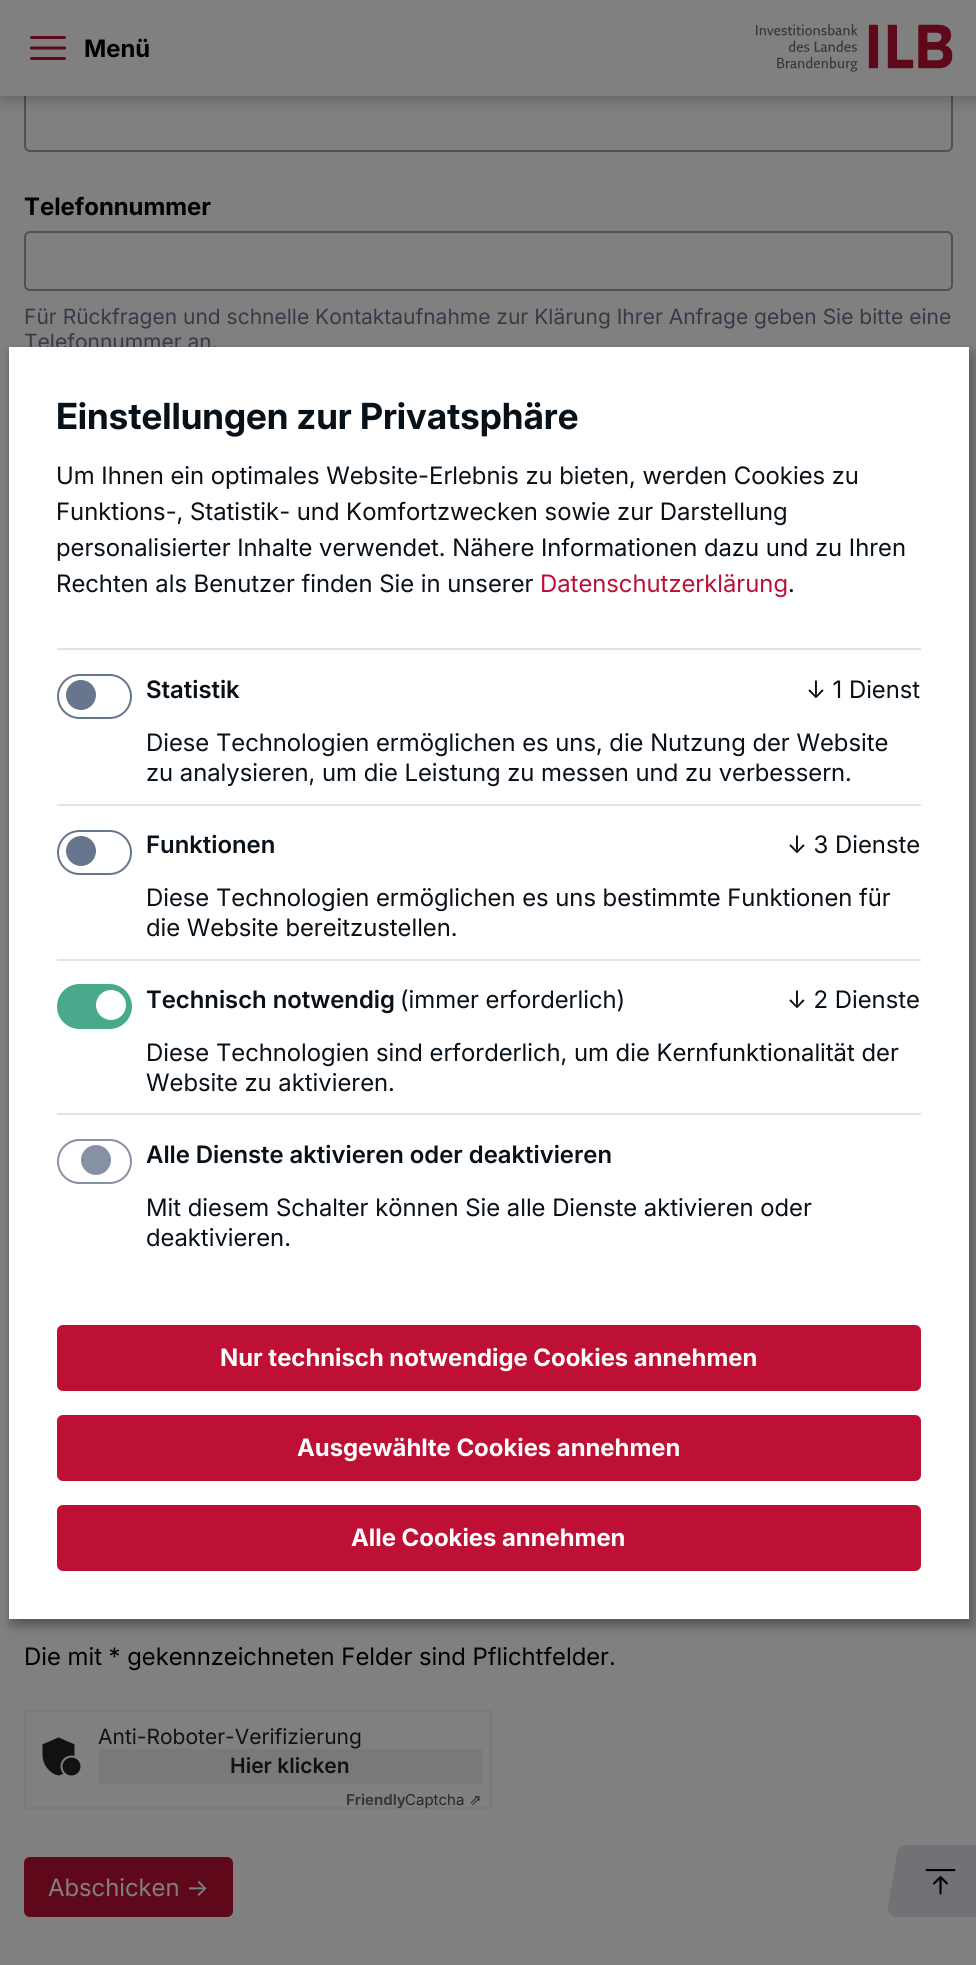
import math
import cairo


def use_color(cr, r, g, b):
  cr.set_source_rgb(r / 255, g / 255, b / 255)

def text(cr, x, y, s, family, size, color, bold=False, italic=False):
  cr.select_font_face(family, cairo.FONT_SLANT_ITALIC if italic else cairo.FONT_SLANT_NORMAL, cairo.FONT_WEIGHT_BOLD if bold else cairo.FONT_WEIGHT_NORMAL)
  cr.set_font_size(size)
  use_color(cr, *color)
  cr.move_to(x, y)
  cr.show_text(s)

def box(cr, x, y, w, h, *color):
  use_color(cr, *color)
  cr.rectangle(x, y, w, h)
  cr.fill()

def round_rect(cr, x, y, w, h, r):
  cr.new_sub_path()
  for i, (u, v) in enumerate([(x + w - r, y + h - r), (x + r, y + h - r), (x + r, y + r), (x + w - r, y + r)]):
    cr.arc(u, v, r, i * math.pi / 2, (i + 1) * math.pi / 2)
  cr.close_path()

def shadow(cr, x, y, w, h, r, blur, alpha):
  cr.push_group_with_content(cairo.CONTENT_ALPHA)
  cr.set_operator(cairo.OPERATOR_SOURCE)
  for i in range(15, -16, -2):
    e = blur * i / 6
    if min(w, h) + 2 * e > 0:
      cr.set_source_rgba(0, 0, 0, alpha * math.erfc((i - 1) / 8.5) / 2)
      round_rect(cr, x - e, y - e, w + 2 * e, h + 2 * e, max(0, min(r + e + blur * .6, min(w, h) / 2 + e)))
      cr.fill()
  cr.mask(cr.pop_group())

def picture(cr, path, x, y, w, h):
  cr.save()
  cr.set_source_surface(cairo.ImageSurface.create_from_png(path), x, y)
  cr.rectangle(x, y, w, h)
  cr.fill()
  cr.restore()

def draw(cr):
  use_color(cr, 128, 128, 128)
  cr.paint()
  round_rect(cr, 25, 93, 927, 58, 5)
  use_color(cr, 78, 82, 88)
  cr.stroke()
  use_color(cr, 0, 0, 0)
  shadow(cr, 0, 6, 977, 96, 0, 6, 0.12)
  shadow(cr, 0, 0, 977, 96, 0, 12, 0.12)
  box(cr, 0, 0, 976, 96, 128, 128, 128)
  cr.new_path()
  cr.move_to(31.5, 37.5)
  cr.line_to(64.5, 37.5)
  cr.move_to(31.5, 48)
  cr.line_to(64.5, 48)
  cr.move_to(31.5, 58.5)
  cr.line_to(64.5, 58.5)
  use_color(cr, 95, 8, 26)
  cr.set_line_width(3)
  cr.set_line_cap(cairo.LINE_CAP_ROUND)
  cr.set_line_join(cairo.LINE_JOIN_ROUND)
  cr.stroke()
  picture(cr, "img_01.png", 756, 24, 197, 48)
  round_rect(cr, 25, 232, 927, 58, 5)
  use_color(cr, 78, 82, 88)
  cr.set_line_width(2)
  cr.set_line_cap(cairo.LINE_CAP_BUTT)
  cr.set_line_join(cairo.LINE_JOIN_MITER)
  cr.stroke()
  cr.rectangle(25, 1711, 466, 97)
  use_color(cr, 122, 122, 122)
  cr.stroke()
  picture(cr, "img_02.png", 42, 1737, 39, 39)
  box(cr, 98, 1749, 384, 35, 121, 121, 121)
  use_color(cr, 95, 8, 26)
  round_rect(cr, 24, 1857, 209, 60, 6)
  cr.fill()
  use_color(cr, 112, 114, 118)
  cr.new_path()
  cr.move_to(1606, 1917)
  cr.line_to(897, 1917)
  cr.curve_to(892, 1917, 887, 1912, 888, 1907)
  cr.line_to(897, 1853)
  cr.curve_to(898, 1848, 902, 1845, 906, 1845)
  cr.line_to(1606, 1845)
  cr.close_path()
  cr.fill()
  picture(cr, "img_03.png", 925, 1869, 31, 26)
  use_color(cr, 0, 0, 0)
  shadow(cr, 17, 354, 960, 1272, 0, 7.5, 0.19)
  shadow(cr, 9, 353, 960, 1272, 0, 4.5, 0.2)
  text(cr, 84, 57, "Menü", "Inter", 24, (0, 0, 0), bold=True)
  text(cr, 24, 215, "Telefonnummer", "Inter", 24, (0, 0, 0), bold=True)
  text(cr, 24, 324, "Für Rückfragen und schnelle Kontaktaufnahme zur Klärung Ihrer Anfrage geben Sie bitte eine", "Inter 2", 21, (52, 59, 71))
  text(cr, 24, 349, "Telefonnummer an.", "Inter 2", 21, (52, 59, 71))
  text(cr, 24, 1665, "Die mit * gekennzeichneten Felder sind Pflichtfelder.", "Inter", 24, (0, 0, 0))
  text(cr, 98, 1744, "Anti-Roboter-Verifizierung", "Inter 2", 21, (17, 17, 17))
  text(cr, 230, 1773, "Hier klicken", "Inter SemiBold", 21, (17, 17, 17))
  text(cr, 346, 1805, "Friendly", "Inter 2", 15, (57, 57, 57), bold=True)
  text(cr, 405, 1805, "Captcha", "Inter 2", 15, (39, 39, 39))
  text(cr, 469, 1805, "⇗", "DejaVu Sans", 15, (39, 39, 39))
  text(cr, 48, 1896, "Abschicken", "Inter", 24, (128, 128, 128))
  text(cr, 186, 1896, "→", "Inter", 24, (128, 128, 128))
  box(cr, 9, 347, 960, 1272, 255, 255, 255)
  text(cr, 56, 429, "Einstellungen zur Privatsphäre", "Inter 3", 36, (8, 16, 24), bold=True)
  text(cr, 56, 484, "Um Ihnen ein optimales Website-Erlebnis zu bieten, werden Cookies zu", "Inter", 24, (8, 16, 24))
  text(cr, 56, 520, "Funktions-, Statistik- und Komfortzwecken sowie zur Darstellung", "Inter", 24, (8, 16, 24))
  text(cr, 56, 556, "personalisierter Inhalte verwendet. Nähere Informationen dazu und zu Ihren", "Inter", 24, (8, 16, 24))
  text(cr, 56, 592, "Rechten als Benutzer finden Sie in unserer", "Inter", 24, (8, 16, 24))
  text(cr, 540, 592, "Datenschutzerklärung", "Inter", 24, (190, 15, 52))
  text(cr, 788, 592, ".", "Inter", 24, (8, 16, 24))
  box(cr, 57, 648, 864, 2, 223, 228, 236)
  round_rect(cr, 58, 675, 73, 43, 21.5)
  use_color(cr, 104, 118, 141)
  cr.stroke()
  cr.arc(81, 695, 15, 0, 2 * math.pi)
  cr.fill()
  text(cr, 146, 698, "Statistik", "Inter 2 SemiBold", 24, (8, 16, 24))
  text(cr, 806, 698, "↓ 1 Dienst", "Inter", 24, (8, 16, 24))
  text(cr, 146, 751, "Diese Technologien ermöglichen es uns, die Nutzung der Website", "Inter", 24, (8, 16, 24))
  text(cr, 146, 781, "zu analysieren, um die Leistung zu messen und zu verbessern.", "Inter", 24, (8, 16, 24))
  box(cr, 57, 804, 864, 2, 223, 228, 236)
  round_rect(cr, 58, 831, 73, 43, 21.5)
  use_color(cr, 104, 118, 141)
  cr.stroke()
  cr.arc(81, 851, 15, 0, 2 * math.pi)
  cr.fill()
  text(cr, 146, 853, "Funktionen", "Inter 2 SemiBold", 24, (8, 16, 24))
  text(cr, 787, 853, "↓ 3 Dienste", "Inter", 24, (8, 16, 24))
  text(cr, 146, 906, "Diese Technologien ermöglichen es uns bestimmte Funktionen für", "Inter", 24, (8, 16, 24))
  text(cr, 146, 936, "die Website bereitzustellen.", "Inter", 24, (8, 16, 24))
  box(cr, 57, 959, 864, 2, 223, 228, 236)
  use_color(cr, 72, 169, 140)
  round_rect(cr, 58, 985, 73, 43, 21.5)
  cr.fill_preserve()
  cr.stroke()
  use_color(cr, 255, 255, 255)
  cr.arc(111, 1005, 15, 0, 2 * math.pi)
  cr.fill()
  text(cr, 146, 1008, "Technisch notwendig", "Inter 2 SemiBold", 24, (8, 16, 24))
  text(cr, 400, 1008, "(immer erforderlich)", "Inter", 24, (8, 16, 24))
  text(cr, 787, 1008, "↓ 2 Dienste", "Inter", 24, (8, 16, 24))
  text(cr, 146, 1061, "Diese Technologien sind erforderlich, um die Kernfunktionalität der", "Inter", 24, (8, 16, 24))
  text(cr, 146, 1091, "Website zu aktivieren.", "Inter", 24, (8, 16, 24))
  box(cr, 57, 1113, 864, 2, 223, 228, 236)
  round_rect(cr, 58, 1140, 73, 43, 21.5)
  use_color(cr, 134, 145, 164)
  cr.stroke()
  cr.arc(96, 1160, 15, 0, 2 * math.pi)
  cr.fill()
  text(cr, 146, 1163, "Alle Dienste aktivieren oder deaktivieren", "Inter 2 SemiBold", 24, (8, 16, 24))
  text(cr, 146, 1216, "Mit diesem Schalter können Sie alle Dienste aktivieren oder", "Inter", 24, (8, 16, 24))
  text(cr, 146, 1246, "deaktivieren.", "Inter", 24, (8, 16, 24))
  use_color(cr, 190, 15, 52)
  round_rect(cr, 57, 1325, 864, 66, 6)
  cr.fill()
  text(cr, 220, 1366, "Nur technisch notwendige Cookies annehmen", "Inter", 24, (255, 255, 255), bold=True)
  use_color(cr, 190, 15, 52)
  round_rect(cr, 57, 1415, 864, 66, 6)
  cr.fill()
  text(cr, 297, 1456, "Ausgewählte Cookies annehmen", "Inter", 24, (255, 255, 255), bold=True)
  use_color(cr, 190, 15, 52)
  round_rect(cr, 57, 1505, 864, 66, 6)
  cr.fill()
  text(cr, 351, 1546, "Alle Cookies annehmen", "Inter", 24, (255, 255, 255), bold=True)


surface = cairo.ImageSurface(cairo.FORMAT_RGB24, 976, 1965)
cr = cairo.Context(surface)
options = cairo.FontOptions()
options.set_hint_metrics(cairo.HINT_METRICS_OFF)
options.set_hint_style(cairo.HINT_STYLE_NONE)
cr.set_font_options(options)
cr.set_miter_limit(4)
draw(cr)
surface.write_to_png("out.png")
